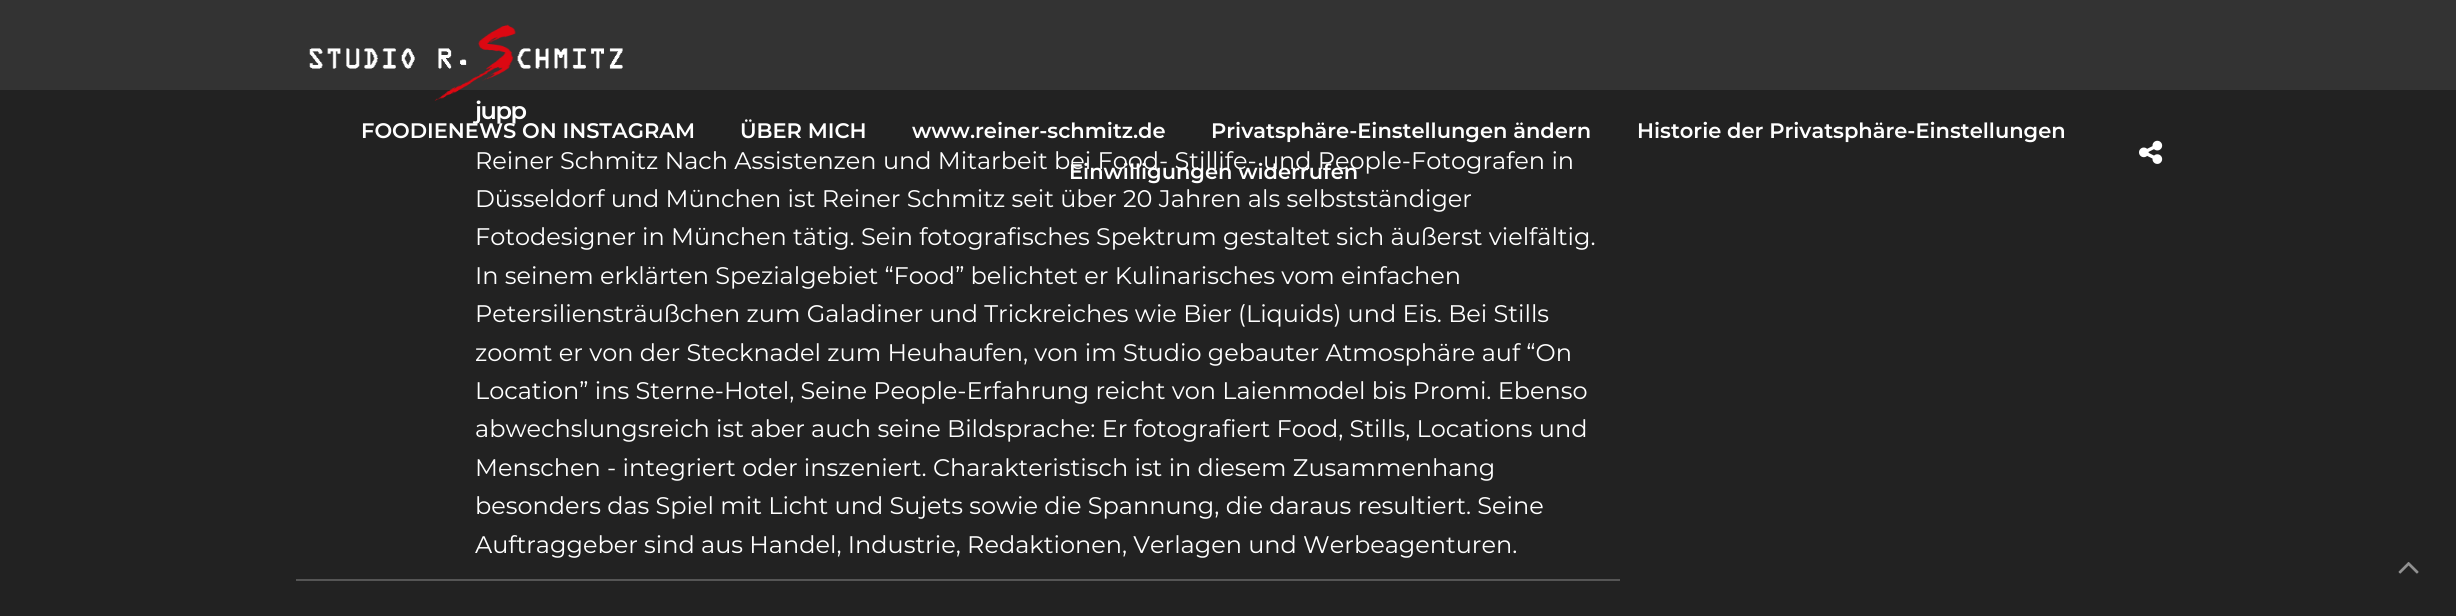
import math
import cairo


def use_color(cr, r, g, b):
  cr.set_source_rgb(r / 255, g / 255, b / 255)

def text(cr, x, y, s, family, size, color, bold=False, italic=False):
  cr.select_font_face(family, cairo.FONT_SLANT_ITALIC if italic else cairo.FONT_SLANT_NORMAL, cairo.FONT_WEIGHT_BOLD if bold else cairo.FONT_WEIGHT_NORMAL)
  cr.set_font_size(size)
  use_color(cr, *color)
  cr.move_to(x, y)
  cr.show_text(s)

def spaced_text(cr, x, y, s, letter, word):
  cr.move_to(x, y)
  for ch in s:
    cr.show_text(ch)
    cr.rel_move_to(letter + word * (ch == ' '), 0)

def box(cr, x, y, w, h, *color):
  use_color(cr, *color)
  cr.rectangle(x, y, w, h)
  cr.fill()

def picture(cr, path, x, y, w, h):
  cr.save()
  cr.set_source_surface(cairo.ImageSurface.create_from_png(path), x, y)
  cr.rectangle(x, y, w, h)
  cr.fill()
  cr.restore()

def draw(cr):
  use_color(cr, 34, 34, 34)
  cr.paint()
  box(cr, 296, 579, 1324, 2, 85, 85, 85)
  box(cr, 0, 0, 2456, 90, 51, 51, 51)
  picture(cr, "img_02.png", 2139, 140, 24, 24)
  picture(cr, "img_03.png", 2398, 562, 21, 12)
  cr.select_font_face("Montserrat SemiBold")
  cr.set_font_size(24)
  use_color(cr, 255, 255, 255)
  spaced_text(cr, 475, 119, "jupp", -1.5, 0)
  text(cr, 475, 169, "Reiner Schmitz Nach Assistenzen und Mitarbeit bei Food- Stillife- und People-Fotografen in", "Montserrat", 24, (255, 255, 255))
  text(cr, 475, 207, "Düsseldorf und München ist Reiner Schmitz seit über 20 Jahren als selbstständiger", "Montserrat", 24, (255, 255, 255))
  text(cr, 475, 245, "Fotodesigner in München tätig. Sein fotografisches Spektrum gestaltet sich äußerst vielfältig.", "Montserrat", 24, (255, 255, 255))
  text(cr, 475, 284, "In seinem erklärten Spezialgebiet “Food” belichtet er Kulinarisches vom einfachen", "Montserrat", 24, (255, 255, 255))
  text(cr, 475, 322, "Petersiliensträußchen zum Galadiner und Trickreiches wie Bier (Liquids) und Eis. Bei Stills", "Montserrat", 24, (255, 255, 255))
  text(cr, 475, 361, "zoomt er von der Stecknadel zum Heuhaufen, von im Studio gebauter Atmosphäre auf “On", "Montserrat", 24, (255, 255, 255))
  text(cr, 475, 399, "Location” ins Sterne-Hotel, Seine People-Erfahrung reicht von Laienmodel bis Promi. Ebenso", "Montserrat", 24, (255, 255, 255))
  text(cr, 475, 437, "abwechslungsreich ist aber auch seine Bildsprache: Er fotografiert Food, Stills, Locations und", "Montserrat", 24, (255, 255, 255))
  text(cr, 475, 476, "Menschen - integriert oder inszeniert. Charakteristisch ist in diesem Zusammenhang", "Montserrat", 24, (255, 255, 255))
  text(cr, 475, 514, "besonders das Spiel mit Licht und Sujets sowie die Spannung, die daraus resultiert. Seine", "Montserrat", 24, (255, 255, 255))
  text(cr, 475, 553, "Auftraggeber sind aus Handel, Industrie, Redaktionen, Verlagen und Werbeagenturen.", "Montserrat", 24, (255, 255, 255))
  picture(cr, "img_01.png", 309, 24, 314, 77)
  text(cr, 361, 138, "FOODIENEWS ON INSTAGRAM", "Montserrat SemiBold", 21, (255, 255, 255))
  text(cr, 740, 138, "ÜBER MICH", "Montserrat SemiBold", 21, (255, 255, 255))
  text(cr, 912, 138, "www.reiner-schmitz.de", "Montserrat SemiBold", 21, (255, 255, 255))
  text(cr, 1211, 138, "Privatsphäre-Einstellungen ändern", "Montserrat SemiBold", 21, (255, 255, 255))
  text(cr, 1637, 138, "Historie der Privatsphäre-Einstellungen", "Montserrat SemiBold", 21, (255, 255, 255))
  text(cr, 1069, 179, "Einwilligungen widerrufen", "Montserrat SemiBold", 21, (255, 255, 255))


surface = cairo.ImageSurface(cairo.FORMAT_RGB24, 2456, 616)
cr = cairo.Context(surface)
options = cairo.FontOptions()
options.set_hint_metrics(cairo.HINT_METRICS_OFF)
options.set_hint_style(cairo.HINT_STYLE_NONE)
cr.set_font_options(options)
cr.set_miter_limit(4)
draw(cr)
surface.write_to_png("out.png")
